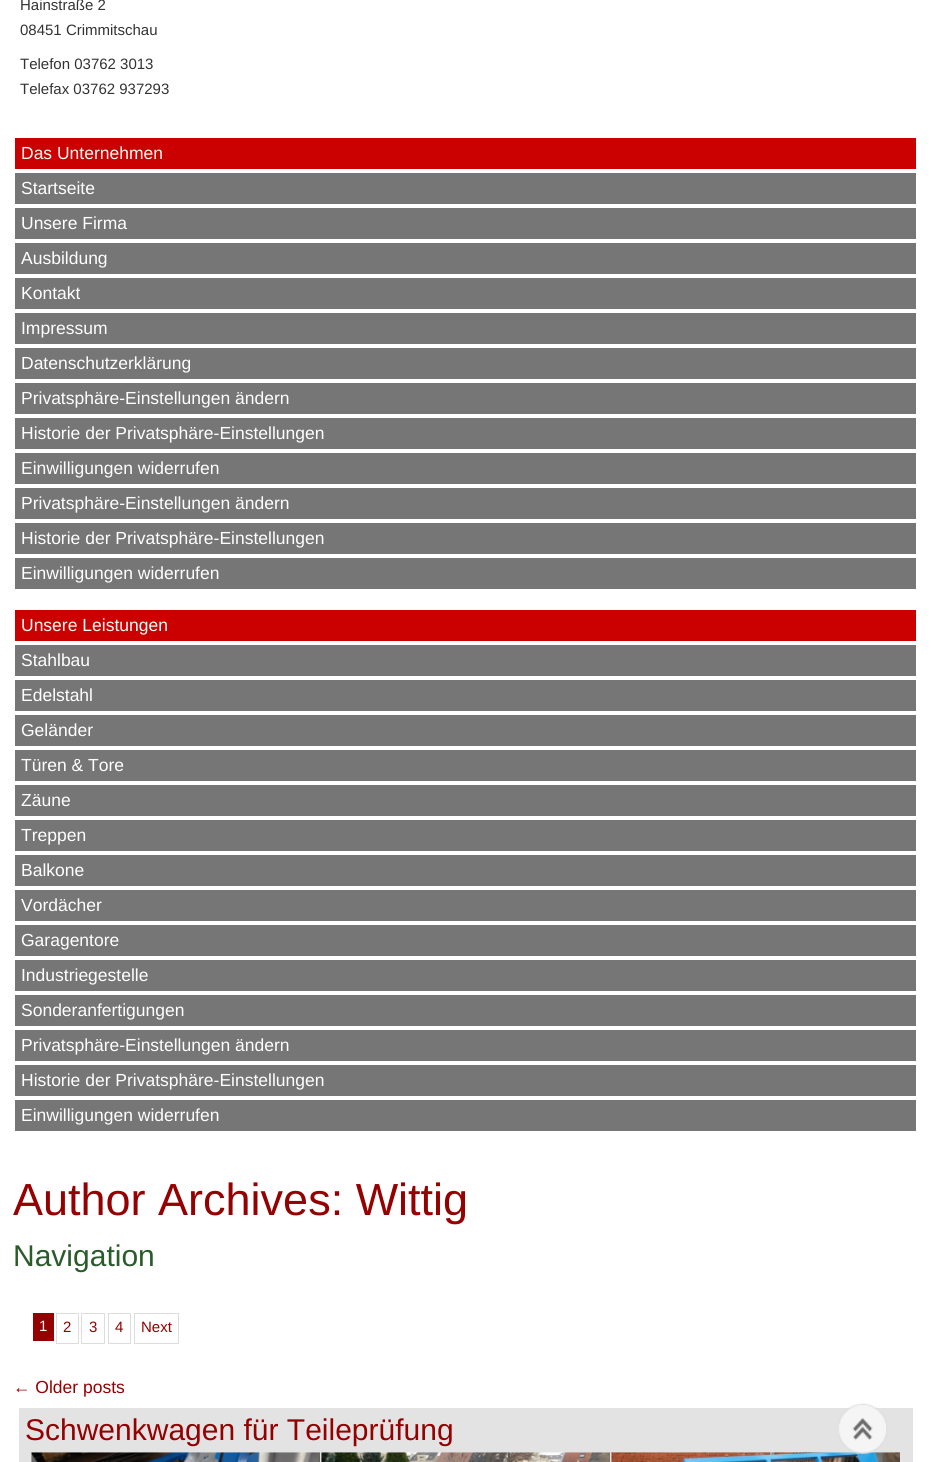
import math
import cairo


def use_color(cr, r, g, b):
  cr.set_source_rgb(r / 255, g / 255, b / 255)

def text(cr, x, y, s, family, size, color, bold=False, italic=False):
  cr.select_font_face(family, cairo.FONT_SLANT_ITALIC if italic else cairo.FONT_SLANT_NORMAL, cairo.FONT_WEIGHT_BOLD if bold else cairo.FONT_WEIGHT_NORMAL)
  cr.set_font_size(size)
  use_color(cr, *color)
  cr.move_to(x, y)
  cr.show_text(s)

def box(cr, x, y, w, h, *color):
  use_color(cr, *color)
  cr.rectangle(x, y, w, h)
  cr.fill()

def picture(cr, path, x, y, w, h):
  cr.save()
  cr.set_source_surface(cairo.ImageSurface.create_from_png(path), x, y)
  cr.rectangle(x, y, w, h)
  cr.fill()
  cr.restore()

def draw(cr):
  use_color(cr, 255, 255, 255)
  cr.paint()
  box(cr, 15, 138, 901, 31, 203, 0, 0)
  box(cr, 15, 173, 901, 31, 118, 118, 118)
  box(cr, 15, 208, 901, 31, 118, 118, 118)
  box(cr, 15, 243, 901, 31, 118, 118, 118)
  box(cr, 15, 278, 901, 31, 118, 118, 118)
  box(cr, 15, 313, 901, 31, 118, 118, 118)
  box(cr, 15, 348, 901, 31, 118, 118, 118)
  box(cr, 15, 383, 901, 31, 118, 118, 118)
  box(cr, 15, 418, 901, 31, 118, 118, 118)
  box(cr, 15, 453, 901, 31, 118, 118, 118)
  box(cr, 15, 488, 901, 31, 118, 118, 118)
  box(cr, 15, 523, 901, 31, 118, 118, 118)
  box(cr, 15, 558, 901, 31, 118, 118, 118)
  box(cr, 15, 610, 901, 31, 203, 0, 0)
  box(cr, 15, 645, 901, 31, 118, 118, 118)
  box(cr, 15, 680, 901, 31, 118, 118, 118)
  box(cr, 15, 715, 901, 31, 118, 118, 118)
  box(cr, 15, 750, 901, 31, 118, 118, 118)
  box(cr, 15, 785, 901, 31, 118, 118, 118)
  box(cr, 15, 820, 901, 31, 118, 118, 118)
  box(cr, 15, 855, 901, 31, 118, 118, 118)
  box(cr, 15, 890, 901, 31, 118, 118, 118)
  box(cr, 15, 925, 901, 31, 118, 118, 118)
  box(cr, 15, 960, 901, 31, 118, 118, 118)
  box(cr, 15, 995, 901, 31, 118, 118, 118)
  box(cr, 15, 1030, 901, 31, 118, 118, 118)
  box(cr, 15, 1065, 901, 31, 118, 118, 118)
  box(cr, 15, 1100, 901, 31, 118, 118, 118)
  box(cr, 33, 1313, 21, 28, 149, 0, 0)
  cr.rectangle(56.5, 1313.5, 22, 30)
  use_color(cr, 221, 221, 221)
  cr.set_line_width(1)
  cr.stroke()
  cr.rectangle(81.5, 1313.5, 23, 30)
  cr.stroke()
  cr.rectangle(108.5, 1313.5, 22, 30)
  cr.stroke()
  cr.rectangle(134.5, 1313.5, 44, 30)
  cr.stroke()
  box(cr, 19, 1408, 894, 54, 227, 227, 227)
  picture(cr, "img_01.png", 31, 1452, 289, 10)
  picture(cr, "img_02.png", 321, 1452, 289, 10)
  picture(cr, "img_03.png", 611, 1452, 289, 10)
  picture(cr, "img_04.png", 839, 1403, 49, 51)
  text(cr, 20, 10, "Hainstraße 2", "Liberation Sans", 15, (51, 51, 51))
  text(cr, 20, 35, "08451 Crimmitschau", "Liberation Sans", 15, (51, 51, 51))
  text(cr, 20, 69, "Telefon 03762 3013", "Liberation Sans", 15, (51, 51, 51))
  text(cr, 20, 94, "Telefax 03762 937293", "Liberation Sans", 15, (51, 51, 51))
  text(cr, 21, 159, "Das Unternehmen", "Liberation Sans", 17.5, (255, 255, 255))
  text(cr, 21, 194, "Startseite", "Liberation Sans", 17.5, (255, 255, 255))
  text(cr, 21, 229, "Unsere Firma", "Liberation Sans", 17.5, (255, 255, 255))
  text(cr, 21, 264, "Ausbildung", "Liberation Sans", 17.5, (255, 255, 255))
  text(cr, 21, 299, "Kontakt", "Liberation Sans", 17.5, (255, 255, 255))
  text(cr, 21, 334, "Impressum", "Liberation Sans", 17.5, (255, 255, 255))
  text(cr, 21, 369, "Datenschutzerklärung", "Liberation Sans", 17.5, (255, 255, 255))
  text(cr, 21, 404, "Privatsphäre-Einstellungen ändern", "Liberation Sans", 17.5, (255, 255, 255))
  text(cr, 21, 439, "Historie der Privatsphäre-Einstellungen", "Liberation Sans", 17.5, (255, 255, 255))
  text(cr, 21, 474, "Einwilligungen widerrufen", "Liberation Sans", 17.5, (255, 255, 255))
  text(cr, 21, 509, "Privatsphäre-Einstellungen ändern", "Liberation Sans", 17.5, (255, 255, 255))
  text(cr, 21, 544, "Historie der Privatsphäre-Einstellungen", "Liberation Sans", 17.5, (255, 255, 255))
  text(cr, 21, 579, "Einwilligungen widerrufen", "Liberation Sans", 17.5, (255, 255, 255))
  text(cr, 21, 631, "Unsere Leistungen", "Liberation Sans", 17.5, (255, 255, 255))
  text(cr, 21, 666, "Stahlbau", "Liberation Sans", 17.5, (255, 255, 255))
  text(cr, 21, 701, "Edelstahl", "Liberation Sans", 17.5, (255, 255, 255))
  text(cr, 21, 736, "Geländer", "Liberation Sans", 17.5, (255, 255, 255))
  text(cr, 21, 771, "Türen & Tore", "Liberation Sans", 17.5, (255, 255, 255))
  text(cr, 21, 806, "Zäune", "Liberation Sans", 17.5, (255, 255, 255))
  text(cr, 21, 841, "Treppen", "Liberation Sans", 17.5, (255, 255, 255))
  text(cr, 21, 876, "Balkone", "Liberation Sans", 17.5, (255, 255, 255))
  text(cr, 21, 911, "Vordächer", "Liberation Sans", 17.5, (255, 255, 255))
  text(cr, 21, 946, "Garagentore", "Liberation Sans", 17.5, (255, 255, 255))
  text(cr, 21, 981, "Industriegestelle", "Liberation Sans", 17.5, (255, 255, 255))
  text(cr, 21, 1016, "Sonderanfertigungen", "Liberation Sans", 17.5, (255, 255, 255))
  text(cr, 21, 1051, "Privatsphäre-Einstellungen ändern", "Liberation Sans", 17.5, (255, 255, 255))
  text(cr, 21, 1086, "Historie der Privatsphäre-Einstellungen", "Liberation Sans", 17.5, (255, 255, 255))
  text(cr, 21, 1121, "Einwilligungen widerrufen", "Liberation Sans", 17.5, (255, 255, 255))
  text(cr, 13, 1215, "Author Archives: Wittig", "Liberation Sans", 45, (149, 0, 0))
  text(cr, 13, 1266, "Navigation", "Liberation Sans", 30, (42, 91, 42))
  text(cr, 39, 1331, "1", "Liberation Sans", 15, (255, 255, 255))
  text(cr, 63, 1332, "2", "Liberation Sans", 15, (149, 0, 0))
  text(cr, 89, 1332, "3", "Liberation Sans", 15, (149, 0, 0))
  text(cr, 115, 1332, "4", "Liberation Sans", 15, (149, 0, 0))
  text(cr, 141, 1332, "Next", "Liberation Sans", 15, (149, 0, 0))
  text(cr, 13, 1393, "← Older posts", "Liberation Sans", 17.5, (149, 0, 0))
  text(cr, 25, 1440, "Schwenkwagen für Teileprüfung", "Liberation Sans", 30, (149, 0, 0))


surface = cairo.ImageSurface(cairo.FORMAT_RGB24, 931, 1462)
cr = cairo.Context(surface)
options = cairo.FontOptions()
options.set_hint_metrics(cairo.HINT_METRICS_OFF)
options.set_hint_style(cairo.HINT_STYLE_NONE)
cr.set_font_options(options)
cr.set_miter_limit(4)
draw(cr)
surface.write_to_png("out.png")
